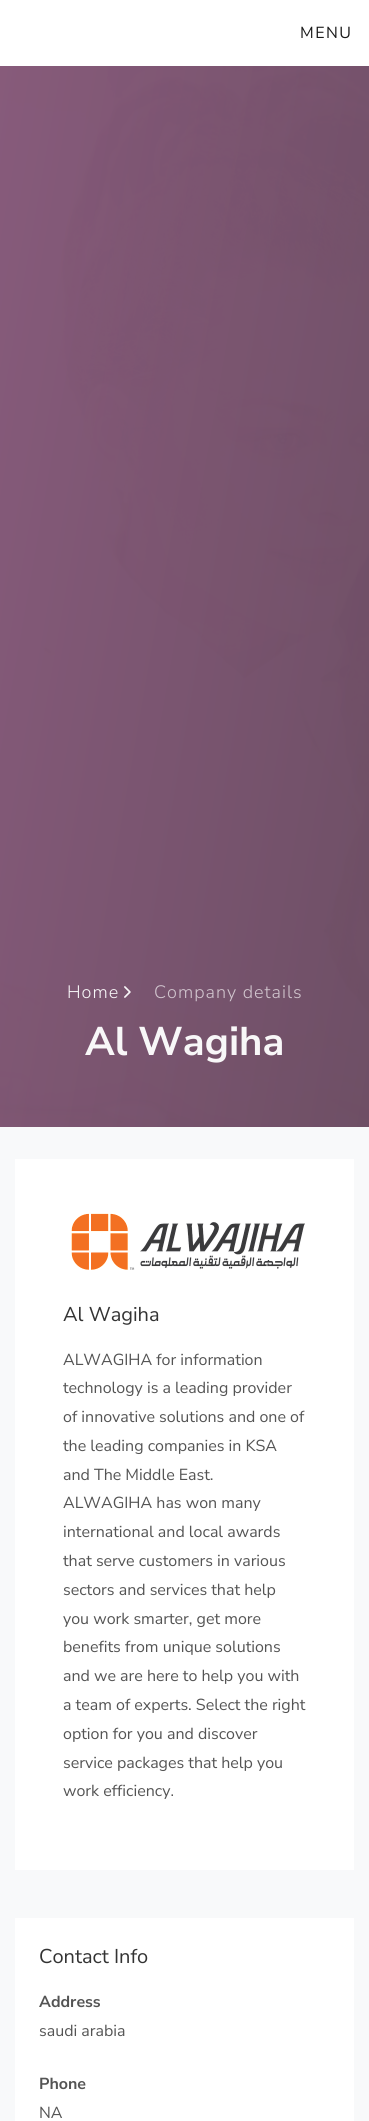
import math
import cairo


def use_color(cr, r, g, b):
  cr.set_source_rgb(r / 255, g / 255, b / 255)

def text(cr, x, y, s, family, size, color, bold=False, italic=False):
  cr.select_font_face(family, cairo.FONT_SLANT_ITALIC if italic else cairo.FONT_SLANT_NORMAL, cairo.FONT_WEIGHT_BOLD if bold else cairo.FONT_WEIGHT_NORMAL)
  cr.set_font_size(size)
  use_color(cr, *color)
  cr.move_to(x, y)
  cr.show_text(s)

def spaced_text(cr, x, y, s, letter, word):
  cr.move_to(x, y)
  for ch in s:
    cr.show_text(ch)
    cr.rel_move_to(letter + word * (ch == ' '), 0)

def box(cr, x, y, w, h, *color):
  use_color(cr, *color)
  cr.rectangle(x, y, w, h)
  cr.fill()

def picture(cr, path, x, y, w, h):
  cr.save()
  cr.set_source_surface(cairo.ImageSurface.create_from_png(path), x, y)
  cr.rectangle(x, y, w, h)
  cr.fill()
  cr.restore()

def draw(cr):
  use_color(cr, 255, 255, 255)
  cr.paint()
  picture(cr, "img_01.png", 0, 66, 369, 1061)
  gradient = cairo.LinearGradient(-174, 998, 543, 1123)
  gradient.add_color_stop_rgba(0, 0.529, 0.353, 0.482, 0.9)
  gradient.add_color_stop_rgba(1, 0.384, 0.286, 0.357, 0.9)
  cr.set_source(gradient)
  cr.rectangle(0, 66, 369, 1061)
  cr.fill()
  picture(cr, "img_02.png", 124, 986, 7, 12)
  box(cr, 0, 1127, 369, 994, 248, 249, 250)
  box(cr, 15, 1159, 339, 711, 255, 255, 255)
  picture(cr, "img_03.png", 71, 1213, 234, 57)
  box(cr, 15, 1918, 339, 203, 255, 255, 255)
  cr.select_font_face("Nunito Sans")
  cr.set_font_size(16)
  use_color(cr, 26, 26, 26)
  spaced_text(cr, 300, 38, "MENU", 1.5, 0)
  cr.select_font_face("Nunito Sans Light")
  cr.set_font_size(18)
  use_color(cr, 248, 247, 248)
  spaced_text(cr, 67, 998, "Home", 1, 0)
  use_color(cr, 209, 197, 206)
  spaced_text(cr, 154, 998, "Company details", 1, 0)
  text(cr, 85, 1055, "Al Wagiha", "Nunito Sans", 40, (248, 247, 248), bold=True)
  text(cr, 63, 1321, "Al Wagiha", "Nunito Sans", 20, (51, 51, 51))
  text(cr, 63, 1365, "ALWAGIHA for information", "Nunito Sans", 16, (84, 84, 84))
  text(cr, 63, 1393, "technology is a leading provider", "Nunito Sans", 16, (84, 84, 84))
  text(cr, 63, 1422, "of innovative solutions and one of", "Nunito Sans", 16, (84, 84, 84))
  text(cr, 63, 1451, "the leading companies in KSA", "Nunito Sans", 16, (84, 84, 84))
  text(cr, 63, 1480, "and The Middle East.", "Nunito Sans", 16, (84, 84, 84))
  text(cr, 63, 1508, "ALWAGIHA has won many", "Nunito Sans", 16, (84, 84, 84))
  text(cr, 63, 1537, "international and local awards", "Nunito Sans", 16, (84, 84, 84))
  text(cr, 63, 1566, "that serve customers in various", "Nunito Sans", 16, (84, 84, 84))
  text(cr, 63, 1595, "sectors and services that help", "Nunito Sans", 16, (84, 84, 84))
  text(cr, 63, 1624, "you work smarter, get more", "Nunito Sans", 16, (84, 84, 84))
  text(cr, 63, 1652, "benefits from unique solutions", "Nunito Sans", 16, (84, 84, 84))
  text(cr, 63, 1681, "and we are here to help you with", "Nunito Sans", 16, (84, 84, 84))
  text(cr, 63, 1710, "a team of experts. Select the right", "Nunito Sans", 16, (84, 84, 84))
  text(cr, 63, 1739, "option for you and discover", "Nunito Sans", 16, (84, 84, 84))
  text(cr, 63, 1768, "service packages that help you", "Nunito Sans", 16, (84, 84, 84))
  text(cr, 63, 1796, "work efficiency.", "Nunito Sans", 16, (84, 84, 84))
  text(cr, 39, 1963, "Contact Info", "Nunito Sans", 20, (51, 51, 51))
  text(cr, 39, 2007, "Address", "Nunito Sans", 16, (84, 84, 84), bold=True)
  text(cr, 39, 2036, "saudi arabia", "Nunito Sans", 16, (84, 84, 84))
  text(cr, 39, 2089, "Phone", "Nunito Sans", 16, (84, 84, 84), bold=True)
  text(cr, 39, 2118, "NA", "Nunito Sans", 16, (84, 84, 84))


surface = cairo.ImageSurface(cairo.FORMAT_RGB24, 369, 2121)
cr = cairo.Context(surface)
options = cairo.FontOptions()
options.set_hint_metrics(cairo.HINT_METRICS_OFF)
options.set_hint_style(cairo.HINT_STYLE_NONE)
cr.set_font_options(options)
cr.set_miter_limit(4)
draw(cr)
surface.write_to_png("out.png")
